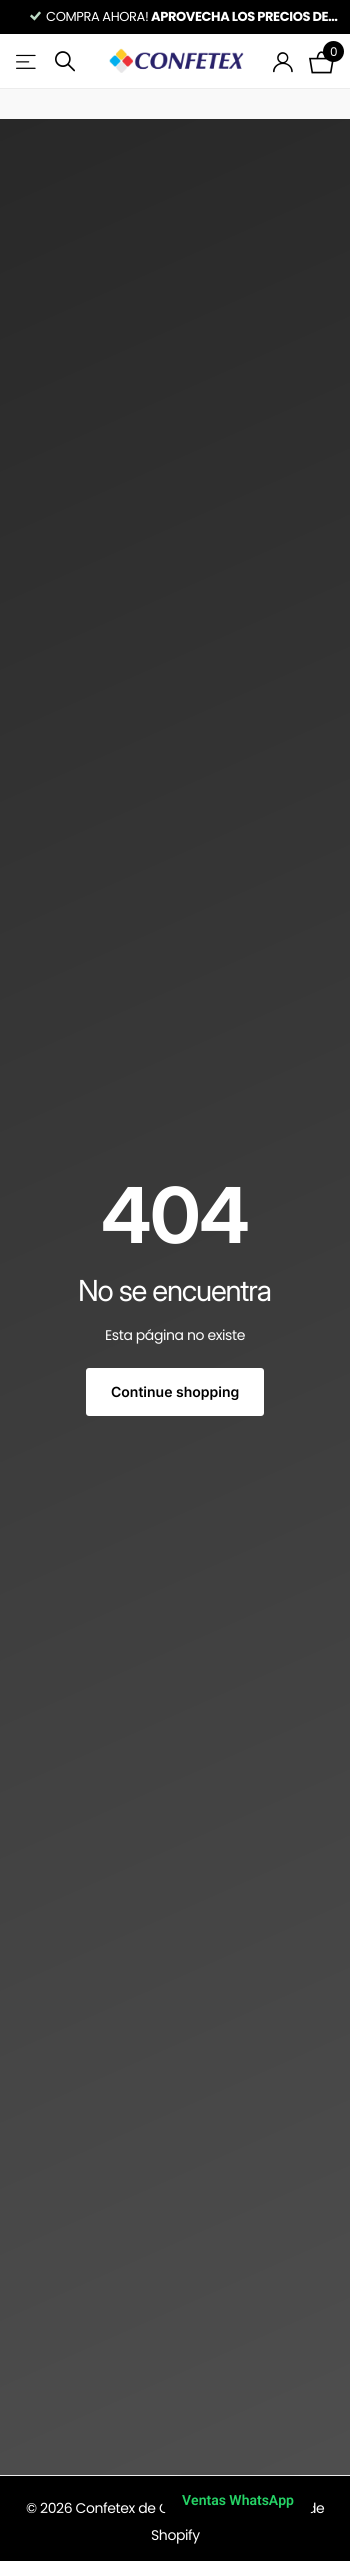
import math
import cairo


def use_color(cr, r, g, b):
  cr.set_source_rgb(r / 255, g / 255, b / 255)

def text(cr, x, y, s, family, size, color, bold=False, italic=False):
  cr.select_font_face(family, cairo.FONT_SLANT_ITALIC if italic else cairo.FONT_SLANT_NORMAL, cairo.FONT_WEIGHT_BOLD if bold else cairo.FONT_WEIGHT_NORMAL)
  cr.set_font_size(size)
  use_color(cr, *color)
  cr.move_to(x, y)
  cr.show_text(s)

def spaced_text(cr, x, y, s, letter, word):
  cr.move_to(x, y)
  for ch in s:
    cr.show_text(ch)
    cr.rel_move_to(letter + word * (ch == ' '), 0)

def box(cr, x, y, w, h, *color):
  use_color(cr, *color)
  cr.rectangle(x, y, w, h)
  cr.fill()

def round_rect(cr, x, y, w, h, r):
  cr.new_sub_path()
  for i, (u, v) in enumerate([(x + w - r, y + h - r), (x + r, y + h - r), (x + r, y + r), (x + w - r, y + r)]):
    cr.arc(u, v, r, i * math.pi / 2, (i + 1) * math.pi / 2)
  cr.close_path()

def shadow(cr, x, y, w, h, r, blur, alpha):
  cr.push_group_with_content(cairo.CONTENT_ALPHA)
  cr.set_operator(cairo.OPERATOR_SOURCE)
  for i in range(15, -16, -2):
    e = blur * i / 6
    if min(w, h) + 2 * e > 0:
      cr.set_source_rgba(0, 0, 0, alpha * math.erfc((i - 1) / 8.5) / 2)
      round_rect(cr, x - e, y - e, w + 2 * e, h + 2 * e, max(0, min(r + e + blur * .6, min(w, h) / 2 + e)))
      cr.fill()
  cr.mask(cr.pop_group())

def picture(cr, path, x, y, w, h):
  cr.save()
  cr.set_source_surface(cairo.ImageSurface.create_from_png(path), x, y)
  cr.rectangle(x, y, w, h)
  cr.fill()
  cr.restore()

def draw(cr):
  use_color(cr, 249, 249, 249)
  cr.paint()
  box(cr, 0, 0, 350, 34, 0, 0, 0)
  picture(cr, "img_01.png", 30, 11, 11, 10)
  box(cr, 0, 34, 350, 54, 255, 255, 255)
  box(cr, 0, 88, 350, 1, 236, 236, 236)
  picture(cr, "img_02.png", 16, 54, 20, 15)
  picture(cr, "img_03.png", 55, 51, 20, 21)
  picture(cr, "img_04.png", 109, 48, 135, 25)
  picture(cr, "img_05.png", 273, 52, 20, 21)
  picture(cr, "img_06.png", 309, 51, 25, 23)
  use_color(cr, 0, 0, 0)
  cr.arc(333.5, 51.5, 10.5, 0, 2 * math.pi)
  cr.fill()
  gradient = cairo.LinearGradient(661, 2431, -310, 249)
  gradient.add_color_stop_rgba(0.04, 0.306, 0.306, 0.306, 1)
  gradient.add_color_stop_rgba(1, 0.157, 0.157, 0.157, 1)
  cr.set_source(gradient)
  cr.rectangle(0, 119, 350, 2356)
  cr.fill()
  use_color(cr, 255, 255, 255)
  round_rect(cr, 86, 1368, 178, 48, 3)
  cr.fill()
  box(cr, 0, 2476, 350, 85, 0, 0, 0)
  box(cr, 0, 2475, 350, 1, 236, 236, 236)
  use_color(cr, 0, 0, 0)
  shadow(cr, 162, 2480, 152, 49, 24.5, 4, 0.2)
  cr.select_font_face("Poppins")
  cr.set_font_size(13)
  use_color(cr, 255, 255, 255)
  spaced_text(cr, 46, 21, "COMPRA AHORA!", -0.4, 0)
  cr.select_font_face("Poppins", cairo.FONT_SLANT_NORMAL, cairo.FONT_WEIGHT_BOLD)
  spaced_text(cr, 151, 21, "APROVECHA LOS PRECIOS DE…", -0.4, 0)
  text(cr, 330, 56, "0", "Poppins", 12, (255, 255, 255))
  cr.select_font_face("Inter", cairo.FONT_SLANT_NORMAL, cairo.FONT_WEIGHT_BOLD)
  cr.set_font_size(77)
  spaced_text(cr, 101, 1243, "404", -1.2, 0)
  cr.select_font_face("Inter")
  cr.set_font_size(29)
  spaced_text(cr, 78, 1301, "No se encuentra", -1.2, 0)
  cr.select_font_face("Poppins")
  cr.set_font_size(14)
  spaced_text(cr, 105, 1340, "Esta página no existe", -0.4, 0)
  text(cr, 111, 1397, "Continue shopping", "Inter SemiBold", 14, (0, 0, 0))
  cr.select_font_face("Poppins")
  use_color(cr, 255, 255, 255)
  spaced_text(cr, 26, 2513, "© 2026 Confetex de C", -0.4, 0)
  spaced_text(cr, 307, 2513, "de", -0.4, 0)
  spaced_text(cr, 151, 2540, "Shopify", -0.4, 0)
  use_color(cr, 0, 0, 0)
  round_rect(cr, 162, 2476, 152, 49, 24.5)
  cr.fill()
  text(cr, 182, 2505, "Ventas WhatsApp", "Roboto SemiBold", 14, (37, 211, 102))


surface = cairo.ImageSurface(cairo.FORMAT_RGB24, 350, 2561)
cr = cairo.Context(surface)
options = cairo.FontOptions()
options.set_hint_metrics(cairo.HINT_METRICS_OFF)
options.set_hint_style(cairo.HINT_STYLE_NONE)
cr.set_font_options(options)
cr.set_miter_limit(4)
draw(cr)
surface.write_to_png("out.png")
